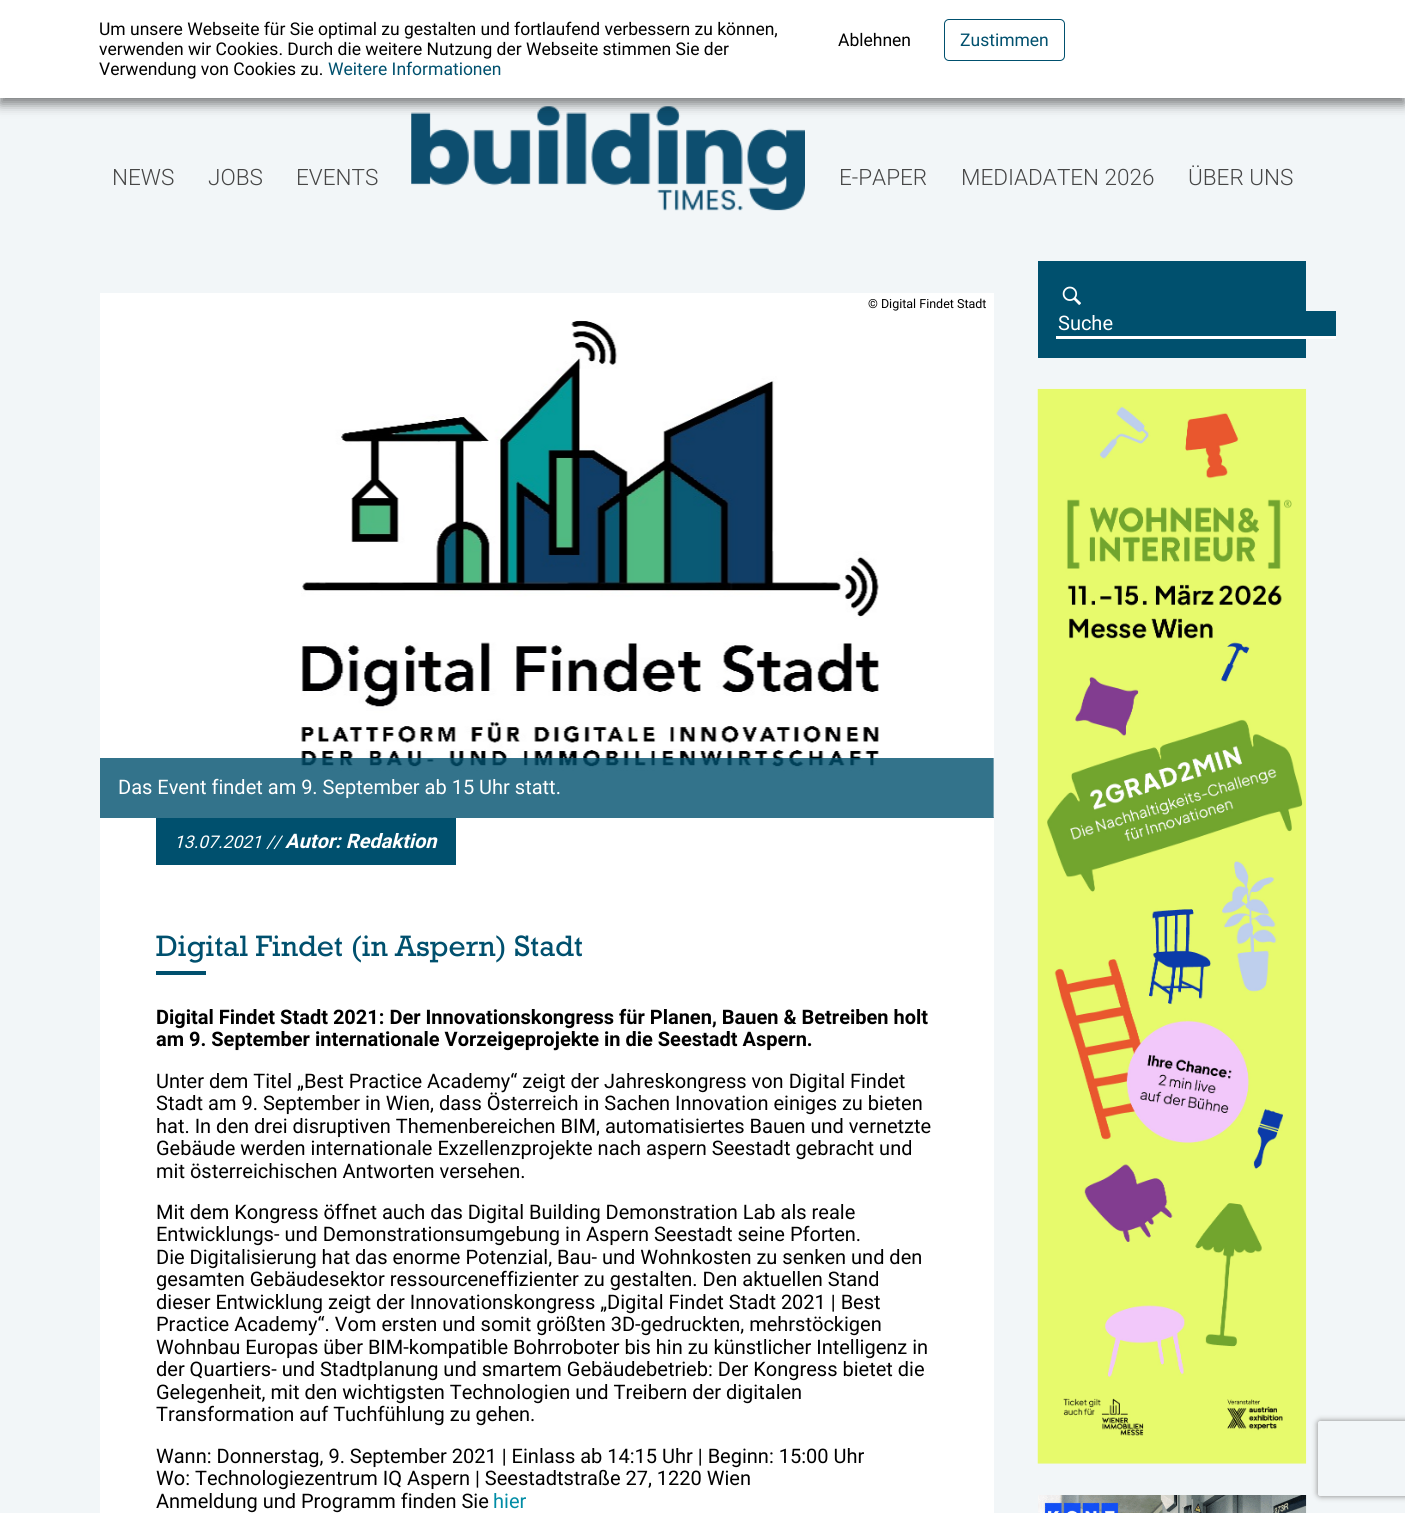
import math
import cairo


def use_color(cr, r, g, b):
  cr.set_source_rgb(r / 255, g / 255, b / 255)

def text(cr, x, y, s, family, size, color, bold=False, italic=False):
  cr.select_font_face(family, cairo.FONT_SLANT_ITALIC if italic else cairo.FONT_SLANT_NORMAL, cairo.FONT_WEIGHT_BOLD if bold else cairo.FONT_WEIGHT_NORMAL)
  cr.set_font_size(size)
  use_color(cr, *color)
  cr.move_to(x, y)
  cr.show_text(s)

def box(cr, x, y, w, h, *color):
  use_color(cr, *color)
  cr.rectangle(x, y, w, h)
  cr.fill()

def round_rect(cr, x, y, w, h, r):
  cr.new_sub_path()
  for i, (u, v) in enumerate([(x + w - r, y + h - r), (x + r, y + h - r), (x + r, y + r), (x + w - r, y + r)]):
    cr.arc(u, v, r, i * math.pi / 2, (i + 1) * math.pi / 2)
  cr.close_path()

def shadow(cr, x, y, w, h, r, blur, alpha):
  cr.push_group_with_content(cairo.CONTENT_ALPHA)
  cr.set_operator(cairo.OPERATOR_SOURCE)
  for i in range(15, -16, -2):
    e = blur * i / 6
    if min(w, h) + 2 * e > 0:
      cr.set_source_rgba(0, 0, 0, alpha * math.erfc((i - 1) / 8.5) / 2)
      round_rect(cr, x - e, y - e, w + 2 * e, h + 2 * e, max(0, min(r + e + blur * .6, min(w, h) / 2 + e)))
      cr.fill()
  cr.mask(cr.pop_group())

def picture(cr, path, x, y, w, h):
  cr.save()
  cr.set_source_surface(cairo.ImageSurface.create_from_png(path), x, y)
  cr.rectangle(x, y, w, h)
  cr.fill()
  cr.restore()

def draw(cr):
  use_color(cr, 242, 246, 248)
  cr.paint()
  picture(cr, "img_01.png", 411, 106, 394, 105)
  use_color(cr, 0, 0, 0)
  shadow(cr, 0, 6, 1405, 98, 0, 6, 0.5)
  box(cr, 0, 0, 1405, 98, 255, 255, 255)
  round_rect(cr, 944.5, 19.5, 120, 41, 4.5)
  use_color(cr, 0, 80, 110)
  cr.set_line_width(1)
  cr.stroke()
  box(cr, 100, 293, 894, 1220, 255, 255, 255)
  picture(cr, "img_02.png", 301, 320, 578, 451)
  cr.set_source_rgba(0, 0.314, 0.431, 0.8)
  cr.rectangle(100, 758, 894, 60)
  cr.fill()
  picture(cr, "img_03.png", 993, 758, 1, 60)
  box(cr, 156, 818, 300, 47, 0, 80, 110)
  box(cr, 156, 971, 50, 4, 0, 80, 110)
  box(cr, 1038, 261, 268, 97, 0, 80, 110)
  picture(cr, "img_04.png", 1062, 286, 19, 19)
  box(cr, 1306, 311, 30, 25, 0, 80, 110)
  box(cr, 1056, 336, 280, 3, 255, 255, 255)
  picture(cr, "img_05.png", 1037, 388, 270, 1076)
  picture(cr, "img_06.png", 1038, 1495, 269, 18)
  cr.save()
  cr.set_fill_rule(cairo.FILL_RULE_EVEN_ODD)
  cr.new_path()
  cr.move_to(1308, 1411)
  cr.line_to(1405, 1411)
  cr.line_to(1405, 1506)
  cr.line_to(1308, 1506)
  cr.close_path()
  cr.move_to(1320.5, 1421)
  cr.line_to(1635.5, 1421)
  cr.curve_to(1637, 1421, 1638, 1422, 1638, 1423.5)
  cr.line_to(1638, 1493.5)
  cr.curve_to(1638, 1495, 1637, 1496, 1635.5, 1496)
  cr.line_to(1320.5, 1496)
  cr.curve_to(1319, 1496, 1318, 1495, 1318, 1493.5)
  cr.line_to(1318, 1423.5)
  cr.curve_to(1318, 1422, 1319, 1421, 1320.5, 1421)
  cr.close_path()
  cr.clip()
  use_color(cr, 128, 128, 128)
  shadow(cr, 1318, 1421, 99, 75, 2.5, 3, 1)
  cr.restore()
  text(cr, 99, 35, "Um unsere Webseite für Sie optimal zu gestalten und fortlaufend verbessern zu können,", "Roboto", 17.5, (0, 0, 0))
  text(cr, 99, 55, "verwenden wir Cookies. Durch die weitere Nutzung der Webseite stimmen Sie der", "Roboto", 17.5, (0, 0, 0))
  text(cr, 99, 75, "Verwendung von Cookies zu.", "Roboto", 17.5, (0, 0, 0))
  text(cr, 328, 75, "Weitere Informationen", "Roboto", 17.5, (0, 80, 110))
  text(cr, 838, 46, "Ablehnen", "Roboto", 17.5, (0, 0, 0))
  text(cr, 960, 46, "Zustimmen", "Roboto", 17.5, (0, 80, 110))
  text(cr, 112, 185, "NEWS", "Roboto Light", 22.5, (70, 70, 70))
  text(cr, 208, 185, "JOBS", "Roboto Light", 22.5, (70, 70, 70))
  text(cr, 296, 185, "EVENTS", "Roboto Light", 22.5, (70, 70, 70))
  text(cr, 839, 185, "E-PAPER", "Roboto Light", 22.5, (70, 70, 70))
  text(cr, 961, 185, "MEDIADATEN 2026", "Roboto Light", 22.5, (70, 70, 70))
  text(cr, 1188, 185, "ÜBER UNS", "Roboto Light", 22.5, (70, 70, 70))
  text(cr, 868, 308, "© Digital Findet Stadt", "Roboto", 12.5, (0, 0, 0))
  text(cr, 118, 794, "Das Event findet am 9. September ab 15 Uhr statt.", "Roboto", 20, (255, 255, 255))
  text(cr, 174, 848, "13.07.2021 //", "Roboto", 17.5, (255, 255, 255), italic=True)
  text(cr, 285, 848, "Autor: Redaktion", "Roboto", 20, (255, 255, 255), bold=True, italic=True)
  text(cr, 156, 956, "Digital Findet (in Aspern) Stadt", "Rockwell", 30, (0, 80, 110))
  text(cr, 156, 1024, "Digital Findet Stadt 2021: Der Innovationskongress für Planen, Bauen & Betreiben holt", "Roboto", 20, (0, 0, 0), bold=True)
  text(cr, 156, 1046, "am 9. September internationale Vorzeigeprojekte in die Seestadt Aspern.", "Roboto", 20, (0, 0, 0), bold=True)
  text(cr, 156, 1088, "Unter dem Titel „Best Practice Academy“ zeigt der Jahreskongress von Digital Findet", "Roboto", 20, (0, 0, 0))
  text(cr, 156, 1110, "Stadt am 9. September in Wien, dass Österreich in Sachen Innovation einiges zu bieten", "Roboto", 20, (0, 0, 0))
  text(cr, 156, 1133, "hat. In den drei disruptiven Themenbereichen BIM, automatisiertes Bauen und vernetzte", "Roboto", 20, (0, 0, 0))
  text(cr, 156, 1155, "Gebäude werden internationale Exzellenzprojekte nach aspern Seestadt gebracht und", "Roboto", 20, (0, 0, 0))
  text(cr, 156, 1178, "mit österreichischen Antworten versehen.", "Roboto", 20, (0, 0, 0))
  text(cr, 156, 1219, "Mit dem Kongress öffnet auch das Digital Building Demonstration Lab als reale", "Roboto", 20, (0, 0, 0))
  text(cr, 156, 1241, "Entwicklungs- und Demonstrationsumgebung in Aspern Seestadt seine Pforten.", "Roboto", 20, (0, 0, 0))
  text(cr, 156, 1264, "Die Digitalisierung hat das enorme Potenzial, Bau- und Wohnkosten zu senken und den", "Roboto", 20, (0, 0, 0))
  text(cr, 156, 1286, "gesamten Gebäudesektor ressourceneffizienter zu gestalten. Den aktuellen Stand", "Roboto", 20, (0, 0, 0))
  text(cr, 156, 1309, "dieser Entwicklung zeigt der Innovationskongress „Digital Findet Stadt 2021 | Best", "Roboto", 20, (0, 0, 0))
  text(cr, 156, 1331, "Practice Academy“. Vom ersten und somit größten 3D-gedruckten, mehrstöckigen", "Roboto", 20, (0, 0, 0))
  text(cr, 156, 1354, "Wohnbau Europas über BIM-kompatible Bohrroboter bis hin zu künstlicher Intelligenz in", "Roboto", 20, (0, 0, 0))
  text(cr, 156, 1376, "der Quartiers- und Stadtplanung und smartem Gebäudebetrieb: Der Kongress bietet die", "Roboto", 20, (0, 0, 0))
  text(cr, 156, 1399, "Gelegenheit, mit den wichtigsten Technologien und Treibern der digitalen", "Roboto", 20, (0, 0, 0))
  text(cr, 156, 1421, "Transformation auf Tuchfühlung zu gehen.", "Roboto", 20, (0, 0, 0))
  text(cr, 156, 1463, "Wann: Donnerstag, 9. September 2021 | Einlass ab 14:15 Uhr | Beginn: 15:00 Uhr", "Roboto", 20, (0, 0, 0))
  text(cr, 156, 1485, "Wo: Technologiezentrum IQ Aspern | Seestadtstraße 27, 1220 Wien", "Roboto", 20, (0, 0, 0))
  text(cr, 156, 1508, "Anmeldung und Programm finden Sie", "Roboto", 20, (0, 0, 0))
  text(cr, 493, 1508, "hier", "Roboto", 20, (0, 140, 165))
  text(cr, 1058, 330, "Suche", "Roboto", 20, (255, 255, 255))


surface = cairo.ImageSurface(cairo.FORMAT_RGB24, 1405, 1513)
cr = cairo.Context(surface)
options = cairo.FontOptions()
options.set_hint_metrics(cairo.HINT_METRICS_OFF)
options.set_hint_style(cairo.HINT_STYLE_NONE)
cr.set_font_options(options)
cr.set_miter_limit(4)
draw(cr)
surface.write_to_png("out.png")
